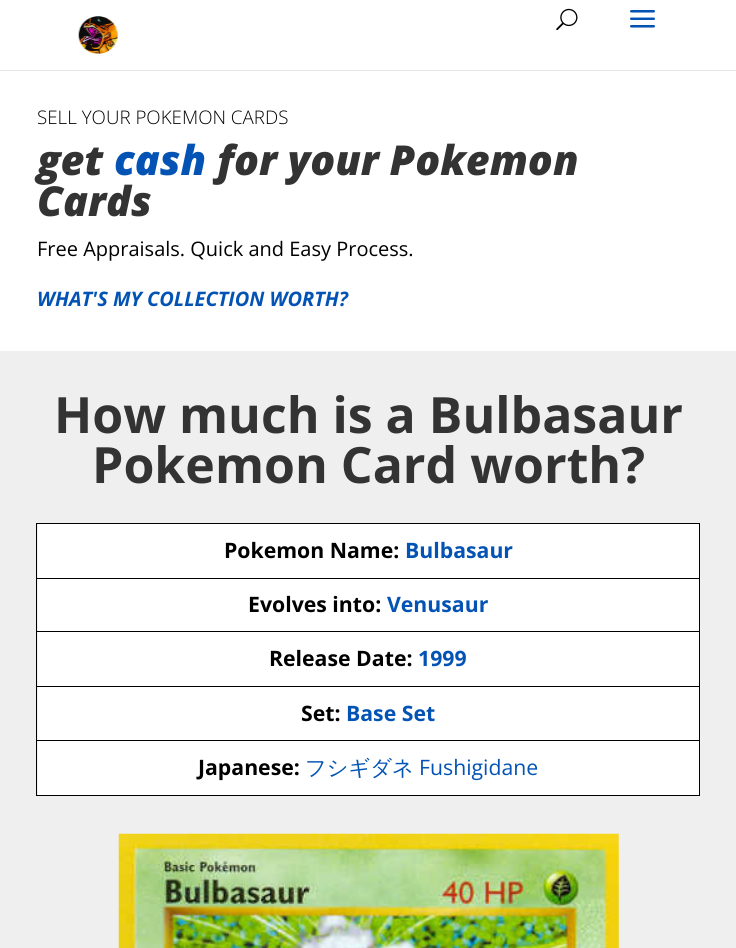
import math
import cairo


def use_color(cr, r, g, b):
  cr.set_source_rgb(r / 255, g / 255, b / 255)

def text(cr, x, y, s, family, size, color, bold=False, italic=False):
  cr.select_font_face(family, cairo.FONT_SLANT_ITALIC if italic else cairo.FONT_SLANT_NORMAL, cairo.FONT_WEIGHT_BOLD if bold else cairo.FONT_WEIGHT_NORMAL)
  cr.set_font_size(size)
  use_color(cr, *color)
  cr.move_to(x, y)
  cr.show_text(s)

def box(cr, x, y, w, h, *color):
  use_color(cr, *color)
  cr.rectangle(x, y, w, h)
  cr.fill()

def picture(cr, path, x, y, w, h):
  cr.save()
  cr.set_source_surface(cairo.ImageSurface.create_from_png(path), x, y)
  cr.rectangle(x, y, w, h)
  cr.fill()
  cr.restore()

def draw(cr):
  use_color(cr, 239, 239, 239)
  cr.paint()
  box(cr, 0, 70, 736, 1, 230, 230, 230)
  box(cr, 0, 0, 736, 70, 255, 255, 255)
  picture(cr, "img_01.png", 78, 16, 40, 38)
  picture(cr, "img_02.png", 556, 8, 22, 23)
  picture(cr, "img_03.png", 630, 10, 25, 18)
  box(cr, 0, 71, 736, 280, 255, 255, 255)
  box(cr, 36, 523, 664, 1, 0, 0, 0)
  box(cr, 699, 523, 1, 273, 0, 0, 0)
  box(cr, 36, 795, 664, 1, 0, 0, 0)
  box(cr, 36, 523, 1, 273, 0, 0, 0)
  box(cr, 38, 524, 661, 54, 255, 255, 255)
  box(cr, 38, 579, 661, 107, 255, 255, 255)
  box(cr, 36, 578, 664, 1, 0, 0, 0)
  box(cr, 36, 631, 664, 1, 0, 0, 0)
  box(cr, 38, 687, 661, 53, 255, 255, 255)
  box(cr, 36, 686, 664, 1, 0, 0, 0)
  box(cr, 38, 741, 661, 54, 255, 255, 255)
  box(cr, 36, 740, 664, 1, 0, 0, 0)
  picture(cr, "img_04.png", 118, 833, 501, 115)
  text(cr, 37, 124, "SELL YOUR POKEMON CARDS", "Open Sans Light", 18.75, (0, 0, 0))
  text(cr, 37, 175, "get", "Open Sans ExtraBold", 41.25, (51, 51, 51), italic=True)
  text(cr, 114, 175, "cash", "Open Sans ExtraBold", 41.25, (3, 83, 181), italic=True)
  text(cr, 217, 175, "for your Pokemon", "Open Sans ExtraBold", 41.25, (51, 51, 51), italic=True)
  text(cr, 37, 216, "Cards", "Open Sans ExtraBold", 41.25, (51, 51, 51), italic=True)
  text(cr, 37, 256, "Free Appraisals. Quick and Easy Process.", "Open Sans", 20, (0, 0, 0))
  text(cr, 37, 306, "WHAT'S MY COLLECTION WORTH?", "Open Sans", 20, (3, 83, 181), bold=True, italic=True)
  text(cr, 54, 433, "How much is a Bulbasaur", "Open Sans", 50, (51, 51, 51), bold=True)
  text(cr, 92, 483, "Pokemon Card worth?", "Open Sans", 50, (51, 51, 51), bold=True)
  text(cr, 224, 558, "Pokemon Name:", "Open Sans", 21.25, (0, 0, 0), bold=True)
  text(cr, 405, 558, "Bulbasaur", "Open Sans", 21.25, (3, 83, 181), bold=True)
  text(cr, 248, 612, "Evolves into:", "Open Sans", 21.25, (0, 0, 0), bold=True)
  text(cr, 387, 612, "Venusaur", "Open Sans", 21.25, (3, 83, 181), bold=True)
  text(cr, 269, 666, "Release Date:", "Open Sans", 21.25, (0, 0, 0), bold=True)
  text(cr, 418, 666, "1999", "Open Sans", 21.25, (3, 83, 181), bold=True)
  text(cr, 301, 721, "Set:", "Open Sans", 21.25, (0, 0, 0), bold=True)
  text(cr, 346, 721, "Base Set", "Open Sans", 21.25, (3, 83, 181), bold=True)
  text(cr, 198, 775, "Japanese:", "Open Sans", 21.25, (0, 0, 0), bold=True)
  text(cr, 305, 775, "フシギダネ", "WenQuanYi Zen Hei Medium", 21.25, (3, 83, 181))
  text(cr, 419, 775, "Fushigidane", "Open Sans", 21.25, (3, 83, 181))


surface = cairo.ImageSurface(cairo.FORMAT_RGB24, 736, 948)
cr = cairo.Context(surface)
options = cairo.FontOptions()
options.set_hint_metrics(cairo.HINT_METRICS_OFF)
options.set_hint_style(cairo.HINT_STYLE_NONE)
cr.set_font_options(options)
cr.set_miter_limit(4)
draw(cr)
surface.write_to_png("out.png")
